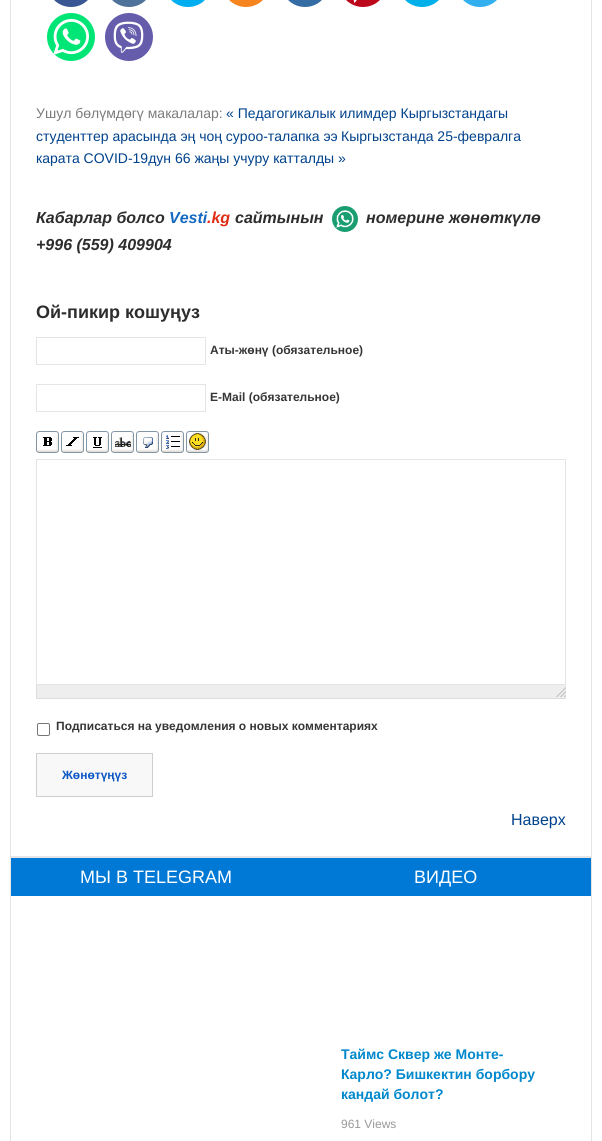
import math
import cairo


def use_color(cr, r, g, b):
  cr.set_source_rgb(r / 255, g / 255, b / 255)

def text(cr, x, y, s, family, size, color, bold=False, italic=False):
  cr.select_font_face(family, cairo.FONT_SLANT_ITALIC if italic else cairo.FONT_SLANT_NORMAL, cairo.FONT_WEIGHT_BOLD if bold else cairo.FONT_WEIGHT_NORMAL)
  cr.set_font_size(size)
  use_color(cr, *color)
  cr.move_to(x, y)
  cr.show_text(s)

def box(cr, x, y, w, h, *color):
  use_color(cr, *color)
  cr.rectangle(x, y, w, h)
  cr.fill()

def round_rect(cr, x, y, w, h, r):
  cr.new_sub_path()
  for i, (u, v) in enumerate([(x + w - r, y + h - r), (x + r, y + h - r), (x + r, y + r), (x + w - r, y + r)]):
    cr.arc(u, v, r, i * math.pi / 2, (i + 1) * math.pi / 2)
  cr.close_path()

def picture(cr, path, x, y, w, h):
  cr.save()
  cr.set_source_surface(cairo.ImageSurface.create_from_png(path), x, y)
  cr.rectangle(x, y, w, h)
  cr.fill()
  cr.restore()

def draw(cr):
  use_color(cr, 255, 255, 255)
  cr.paint()
  box(cr, 591, 0, 1, 1141, 229, 229, 229)
  box(cr, 10, 0, 1, 1141, 229, 229, 229)
  box(cr, 11, 856, 580, 2, 229, 229, 229)
  use_color(cr, 58, 87, 149)
  round_rect(cr, 47, -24, 48, 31, 24)
  cr.fill()
  use_color(cr, 78, 114, 153)
  round_rect(cr, 105, -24, 48, 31, 24)
  cr.fill()
  use_color(cr, 0, 174, 239)
  round_rect(cr, 164, -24, 48, 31, 24)
  cr.fill()
  use_color(cr, 246, 133, 31)
  round_rect(cr, 222, -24, 48, 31, 24)
  cr.fill()
  use_color(cr, 53, 108, 164)
  round_rect(cr, 281, -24, 48, 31, 24)
  cr.fill()
  use_color(cr, 189, 8, 28)
  round_rect(cr, 339, -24, 48, 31, 24)
  cr.fill()
  picture(cr, "img_01.png", 353, 0, 4, 3)
  use_color(cr, 0, 176, 234)
  round_rect(cr, 398, -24, 48, 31, 24)
  cr.fill()
  use_color(cr, 50, 175, 237)
  round_rect(cr, 456, -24, 48, 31, 24)
  cr.fill()
  use_color(cr, 0, 230, 118)
  cr.arc(71, 37, 24, 0, 2 * math.pi)
  cr.fill()
  picture(cr, "img_02.png", 53, 19, 36, 36)
  use_color(cr, 102, 92, 172)
  cr.arc(129, 37, 24, 0, 2 * math.pi)
  cr.fill()
  picture(cr, "img_03.png", 113, 21, 31, 32)
  use_color(cr, 26, 157, 112)
  cr.arc(345, 219, 13, 0, 2 * math.pi)
  cr.fill()
  picture(cr, "img_04.png", 336, 210, 18, 18)
  cr.rectangle(36.5, 337.5, 169, 27)
  use_color(cr, 229, 229, 229)
  cr.set_line_width(1)
  cr.stroke()
  cr.rectangle(36.5, 384.5, 169, 27)
  cr.stroke()
  picture(cr, "img_05.png", 36, 431, 23, 22)
  picture(cr, "img_06.png", 61, 431, 23, 22)
  picture(cr, "img_07.png", 86, 431, 23, 22)
  picture(cr, "img_08.png", 111, 431, 23, 22)
  picture(cr, "img_09.png", 136, 431, 23, 22)
  picture(cr, "img_10.png", 161, 431, 23, 22)
  picture(cr, "img_11.png", 186, 431, 23, 22)
  cr.rectangle(36.5, 459.5, 529, 225)
  cr.stroke()
  box(cr, 37, 685, 529, 13, 238, 238, 238)
  picture(cr, "img_12.png", 556, 687, 10, 10)
  box(cr, 36, 698, 530, 1, 221, 221, 221)
  box(cr, 36, 685, 1, 14, 221, 221, 221)
  round_rect(cr, 37.5, 723.5, 12, 12, 1.5)
  use_color(cr, 118, 118, 118)
  cr.stroke()
  use_color(cr, 248, 248, 248)
  cr.rectangle(36.5, 753.5, 116, 43)
  cr.fill_preserve()
  use_color(cr, 206, 206, 206)
  cr.stroke()
  box(cr, 11, 858, 580, 38, 0, 121, 214)
  text(cr, 36, 118, "Ушул бөлүмдөгү макалалар:", "Liberation Sans", 14, (125, 123, 122))
  text(cr, 226, 118, "« Педагогикалык илимдер Кыргызстандагы", "Liberation Sans", 14, (0, 66, 140))
  text(cr, 36, 141, "студенттер арасында эң чоң суроо-талапка ээ", "Liberation Sans", 14, (0, 66, 140))
  text(cr, 341, 141, "Кыргызстанда 25-февралга", "Liberation Sans", 14, (0, 66, 140))
  text(cr, 36, 163, "карата COVID-19дун 66 жаңы учуру катталды »", "Liberation Sans", 14, (0, 66, 140))
  text(cr, 36, 223, "Кабарлар болсо", "Liberation Sans", 16, (45, 45, 45), bold=True, italic=True)
  text(cr, 169, 223, "Vesti", "Liberation Sans", 16, (21, 105, 193), bold=True, italic=True)
  text(cr, 207, 223, ".kg", "Liberation Sans", 16, (225, 44, 22), bold=True, italic=True)
  text(cr, 235, 223, "сайтынын", "Liberation Sans", 16, (45, 45, 45), bold=True, italic=True)
  text(cr, 366, 223, "номерине жөнөткүлө", "Liberation Sans", 16, (45, 45, 45), bold=True, italic=True)
  text(cr, 36, 250, "+996 (559) 409904", "Liberation Sans", 16, (45, 45, 45), bold=True, italic=True)
  text(cr, 36, 318, "Ой-пикир кошуңуз", "Liberation Sans", 18, (45, 45, 45), bold=True)
  text(cr, 210, 354, "Аты-жөнү (обязательное)", "Liberation Sans", 12, (54, 54, 54), bold=True)
  text(cr, 210, 401, "E-Mail (обязательное)", "Liberation Sans", 12, (54, 54, 54), bold=True)
  text(cr, 56, 730, "Подписаться на уведомления о новых комментариях", "Liberation Sans", 12, (54, 54, 54), bold=True)
  text(cr, 62, 779, "Жөнөтүңүз", "Liberation Sans", 12, (11, 85, 196), bold=True)
  text(cr, 511, 825, "Наверх", "Liberation Sans", 16, (0, 66, 140))
  text(cr, 80, 883, "МЫ В TELEGRAM", "Liberation Sans", 18, (255, 255, 255))
  text(cr, 414, 883, "ВИДЕО", "Liberation Sans", 18, (255, 255, 255))
  text(cr, 341, 1059, "Таймс Сквер же Монте-", "Liberation Sans", 14, (0, 136, 204), bold=True)
  text(cr, 341, 1079, "Карло? Бишкектин борбору", "Liberation Sans", 14, (0, 136, 204), bold=True)
  text(cr, 341, 1099, "кандай болот?", "Liberation Sans", 14, (0, 136, 204), bold=True)
  text(cr, 341, 1128, "961 Views", "Liberation Sans", 12, (153, 153, 153))


surface = cairo.ImageSurface(cairo.FORMAT_RGB24, 602, 1141)
cr = cairo.Context(surface)
options = cairo.FontOptions()
options.set_hint_metrics(cairo.HINT_METRICS_OFF)
options.set_hint_style(cairo.HINT_STYLE_NONE)
cr.set_font_options(options)
cr.set_miter_limit(4)
draw(cr)
surface.write_to_png("out.png")
